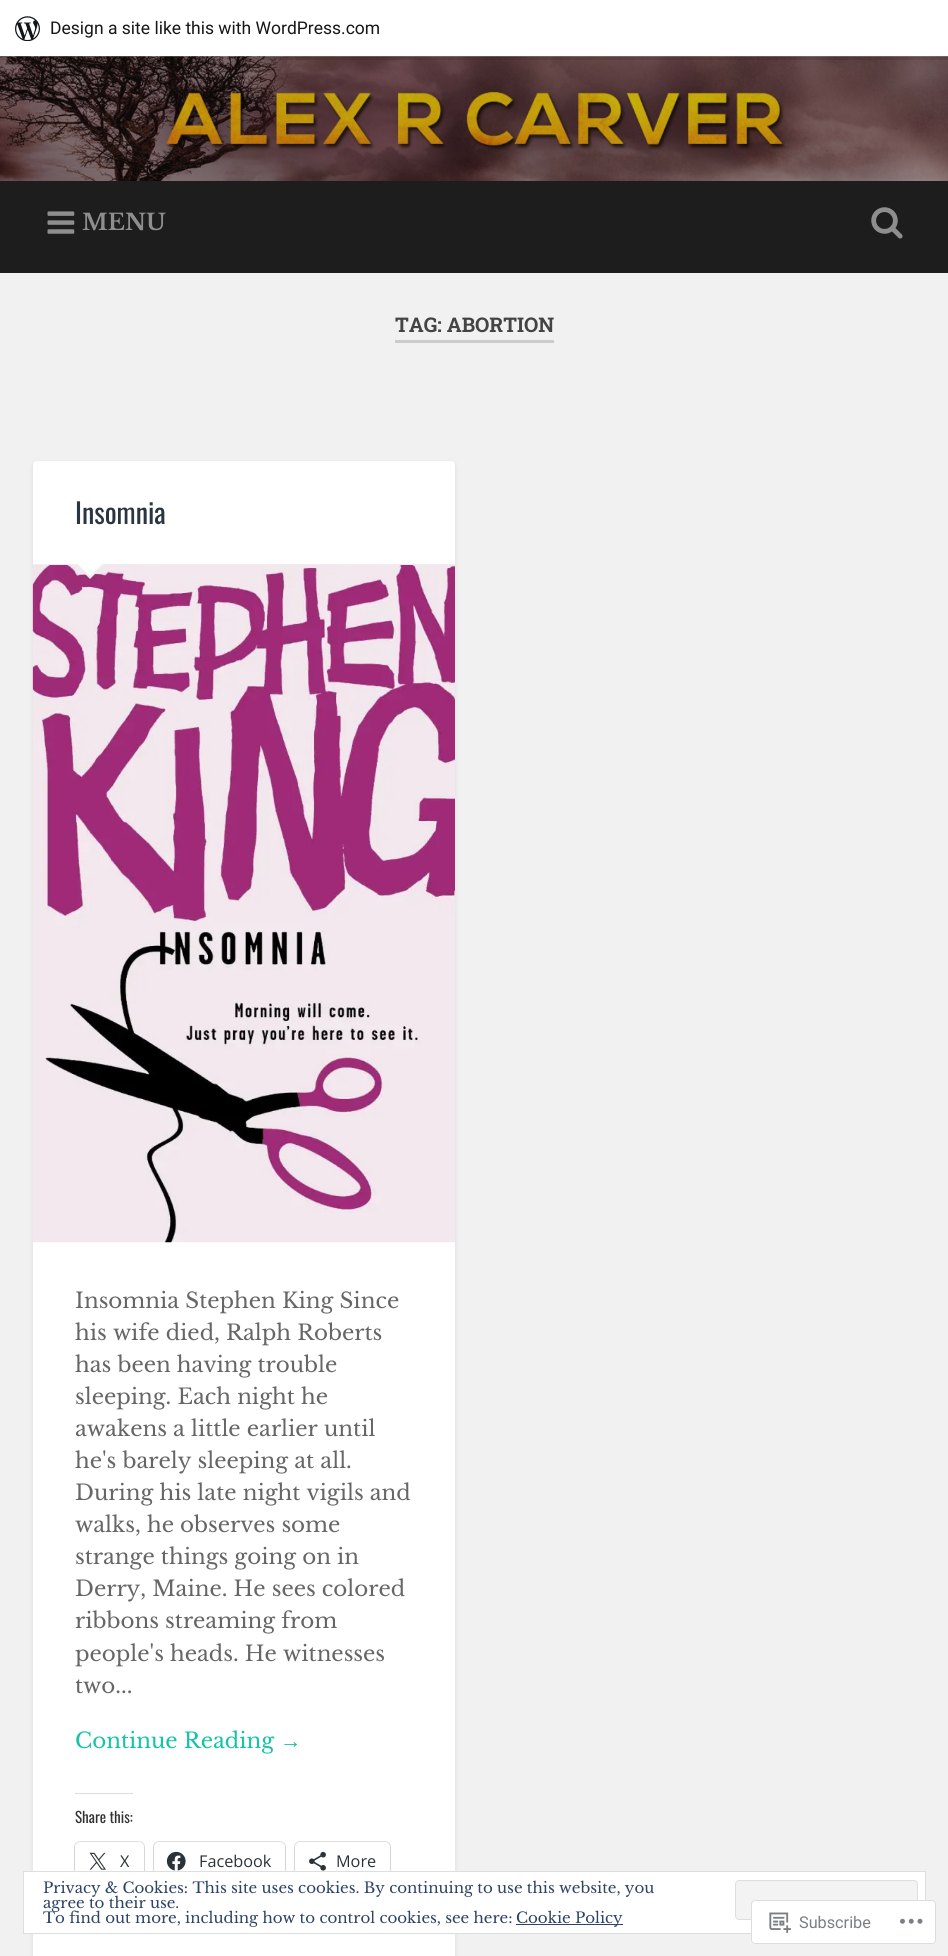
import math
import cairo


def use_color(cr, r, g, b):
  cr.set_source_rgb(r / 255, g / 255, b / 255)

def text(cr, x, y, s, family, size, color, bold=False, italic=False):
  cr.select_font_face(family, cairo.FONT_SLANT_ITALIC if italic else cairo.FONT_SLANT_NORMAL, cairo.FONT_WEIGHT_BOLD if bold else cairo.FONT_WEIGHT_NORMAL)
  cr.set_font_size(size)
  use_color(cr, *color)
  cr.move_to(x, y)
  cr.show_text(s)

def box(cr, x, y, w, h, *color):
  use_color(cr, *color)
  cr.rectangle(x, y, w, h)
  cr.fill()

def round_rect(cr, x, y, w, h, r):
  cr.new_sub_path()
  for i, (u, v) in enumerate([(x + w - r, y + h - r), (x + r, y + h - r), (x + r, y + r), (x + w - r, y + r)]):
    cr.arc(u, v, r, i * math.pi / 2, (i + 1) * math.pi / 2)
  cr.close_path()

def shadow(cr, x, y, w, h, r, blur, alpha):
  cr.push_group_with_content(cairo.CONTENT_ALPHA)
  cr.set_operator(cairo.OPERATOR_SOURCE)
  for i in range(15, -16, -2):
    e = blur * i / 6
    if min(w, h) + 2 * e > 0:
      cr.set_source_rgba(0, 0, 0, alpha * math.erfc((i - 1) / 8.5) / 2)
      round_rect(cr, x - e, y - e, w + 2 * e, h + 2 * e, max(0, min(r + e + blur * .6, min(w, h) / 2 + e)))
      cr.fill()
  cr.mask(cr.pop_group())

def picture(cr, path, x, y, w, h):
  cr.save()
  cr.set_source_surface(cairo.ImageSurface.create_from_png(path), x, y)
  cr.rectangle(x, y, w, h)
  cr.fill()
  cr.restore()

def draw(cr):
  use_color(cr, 241, 241, 241)
  cr.paint()
  picture(cr, "img_02.png", 0, 56, 948, 125)
  use_color(cr, 0, 0, 0)
  shadow(cr, 0, 1, 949, 57, 0, 1, 0.05)
  cr.set_source_rgba(0, 0, 0, 0.08)
  cr.new_path()
  cr.move_to(1, 56)
  cr.line_to(1, 60)
  cr.line_to(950, 60)
  cr.line_to(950, 4)
  cr.line_to(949, 4)
  cr.line_to(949, 56)
  cr.close_path()
  cr.fill()
  box(cr, 0, 0, 948, 56, 255, 255, 255)
  picture(cr, "img_01.png", 15, 16, 25, 25)
  box(cr, 0, 181, 948, 92, 29, 29, 29)
  picture(cr, "img_03.png", 47, 211, 28, 23)
  picture(cr, "img_04.png", 871, 207, 32, 32)
  box(cr, 395, 340, 159, 3, 204, 204, 204)
  use_color(cr, 0, 0, 0)
  shadow(cr, 33, 463, 422, 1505, 4, 2.5, 0.1)
  use_color(cr, 255, 255, 255)
  round_rect(cr, 33, 461, 422, 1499, 4)
  cr.fill()
  box(cr, 33, 564, 422, 1, 238, 238, 238)
  picture(cr, "img_05.png", 32, 565, 423, 678)
  cr.new_path()
  cr.move_to(75, 564)
  cr.line_to(105, 564)
  cr.line_to(90, 579)
  cr.close_path()
  cr.fill()
  use_color(cr, 255, 255, 255)
  cr.new_path()
  cr.move_to(76, 562.5)
  cr.line_to(104, 562.5)
  cr.line_to(90, 576)
  cr.close_path()
  cr.fill()
  box(cr, 75, 1793, 58, 1, 220, 220, 222)
  round_rect(cr, 74.5, 1841.5, 70, 39, 5.5)
  use_color(cr, 224, 224, 224)
  cr.set_line_width(1)
  cr.stroke()
  use_color(cr, 0, 0, 0)
  shadow(cr, 75, 1844, 69, 37, 5, 1, 0.12)
  use_color(cr, 255, 255, 255)
  round_rect(cr, 75, 1843, 69, 37, 5)
  cr.fill()
  picture(cr, "img_06.png", 89, 1852, 17, 18)
  round_rect(cr, 153.5, 1841.5, 132, 39, 5.5)
  use_color(cr, 224, 224, 224)
  cr.stroke()
  use_color(cr, 0, 0, 0)
  shadow(cr, 154, 1844, 131, 37, 5, 1, 0.12)
  use_color(cr, 255, 255, 255)
  round_rect(cr, 154, 1843, 131, 37, 5)
  cr.fill()
  picture(cr, "img_07.png", 166, 1851, 20, 20)
  round_rect(cr, 294.5, 1841.5, 96, 39, 5.5)
  use_color(cr, 224, 224, 224)
  cr.stroke()
  use_color(cr, 0, 0, 0)
  shadow(cr, 295, 1844, 95, 37, 5, 1, 0.12)
  use_color(cr, 255, 255, 255)
  round_rect(cr, 295, 1843, 95, 37, 5)
  cr.fill()
  picture(cr, "img_08.png", 309, 1851, 17, 20)
  cr.rectangle(23.5, 1871.5, 902, 62)
  cr.fill_preserve()
  use_color(cr, 222, 222, 222)
  cr.stroke()
  use_color(cr, 243, 243, 243)
  round_rect(cr, 735.5, 1880.5, 182, 39, 3.5)
  cr.fill_preserve()
  use_color(cr, 222, 222, 222)
  cr.stroke()
  box(cr, 516, 1924, 107, 1, 46, 68, 103)
  cr.set_source_rgba(1, 1, 1, 0.98)
  round_rect(cr, 751, 1900, 185, 44, 4)
  cr.fill()
  round_rect(cr, 751.5, 1900.5, 184, 43, 3.5)
  cr.set_source_rgba(0.863, 0.863, 0.871, 0.98)
  cr.stroke()
  picture(cr, "img_09.png", 769, 1912, 22, 21)
  picture(cr, "img_10.png", 900, 1918, 23, 6)
  text(cr, 50, 34, "Design a site like this with WordPress.com", "Roboto", 17.5, (23, 23, 23))
  text(cr, 82, 230, "MENU", "Libre Baskerville", 22.5, (142, 142, 142), bold=True)
  text(cr, 395, 332, "TAG: ABORTION", "Roboto Slab", 20.25, (68, 68, 68), bold=True)
  text(cr, 75, 524, "Insomnia", "Oswald", 28, (43, 53, 66))
  text(cr, 75, 1308, "Insomnia Stephen King Since", "Libre Baskerville", 21.4, (102, 102, 102))
  text(cr, 75, 1340, "his wife died, Ralph Roberts", "Libre Baskerville", 21.4, (102, 102, 102))
  text(cr, 75, 1372, "has been having trouble", "Libre Baskerville", 21.4, (102, 102, 102))
  text(cr, 75, 1404, "sleeping. Each night he", "Libre Baskerville", 21.4, (102, 102, 102))
  text(cr, 75, 1436, "awakens a little earlier until", "Libre Baskerville", 21.4, (102, 102, 102))
  text(cr, 75, 1468, "he's barely sleeping at all.", "Libre Baskerville", 21.4, (102, 102, 102))
  text(cr, 75, 1500, "During his late night vigils and", "Libre Baskerville", 21.4, (102, 102, 102))
  text(cr, 75, 1532, "walks, he observes some", "Libre Baskerville", 21.4, (102, 102, 102))
  text(cr, 75, 1564, "strange things going on in", "Libre Baskerville", 21.4, (102, 102, 102))
  text(cr, 75, 1596, "Derry, Maine. He sees colored", "Libre Baskerville", 21.4, (102, 102, 102))
  text(cr, 75, 1628, "ribbons streaming from", "Libre Baskerville", 21.4, (102, 102, 102))
  text(cr, 75, 1661, "people's heads. He witnesses", "Libre Baskerville", 21.4, (102, 102, 102))
  text(cr, 75, 1693, "two...", "Libre Baskerville", 21.4, (102, 102, 102))
  text(cr, 75, 1748, "Continue Reading", "Libre Baskerville", 21.4, (19, 196, 165))
  text(cr, 280, 1748, "→", "Liberation Serif", 21.4, (19, 196, 165))
  text(cr, 75, 1823, "Share this:", "Oswald", 15, (51, 51, 51))
  text(cr, 120, 1867, "X", "Open Sans", 16.25, (44, 51, 56))
  text(cr, 199, 1867, "Facebook", "Open Sans", 16.25, (44, 51, 56))
  text(cr, 336, 1867, "More", "Open Sans", 16.25, (44, 51, 56))
  text(cr, 43, 1893, "Privacy & Cookies: This site uses cookies. By continuing to use this website, you", "Libre Baskerville", 15, (46, 68, 103))
  text(cr, 43, 1908, "agree to their use.", "Libre Baskerville", 15, (46, 68, 103))
  text(cr, 43, 1923, "To find out more, including how to control cookies, see here:", "Libre Baskerville", 15, (46, 68, 103))
  text(cr, 516, 1923, "Cookie Policy", "Libre Baskerville", 15, (46, 68, 103))
  text(cr, 799, 1928, "Subscribe", "Roboto", 16.25, (123, 127, 132))


surface = cairo.ImageSurface(cairo.FORMAT_RGB24, 948, 1956)
cr = cairo.Context(surface)
options = cairo.FontOptions()
options.set_hint_metrics(cairo.HINT_METRICS_OFF)
options.set_hint_style(cairo.HINT_STYLE_NONE)
cr.set_font_options(options)
cr.set_miter_limit(4)
draw(cr)
surface.write_to_png("out.png")
